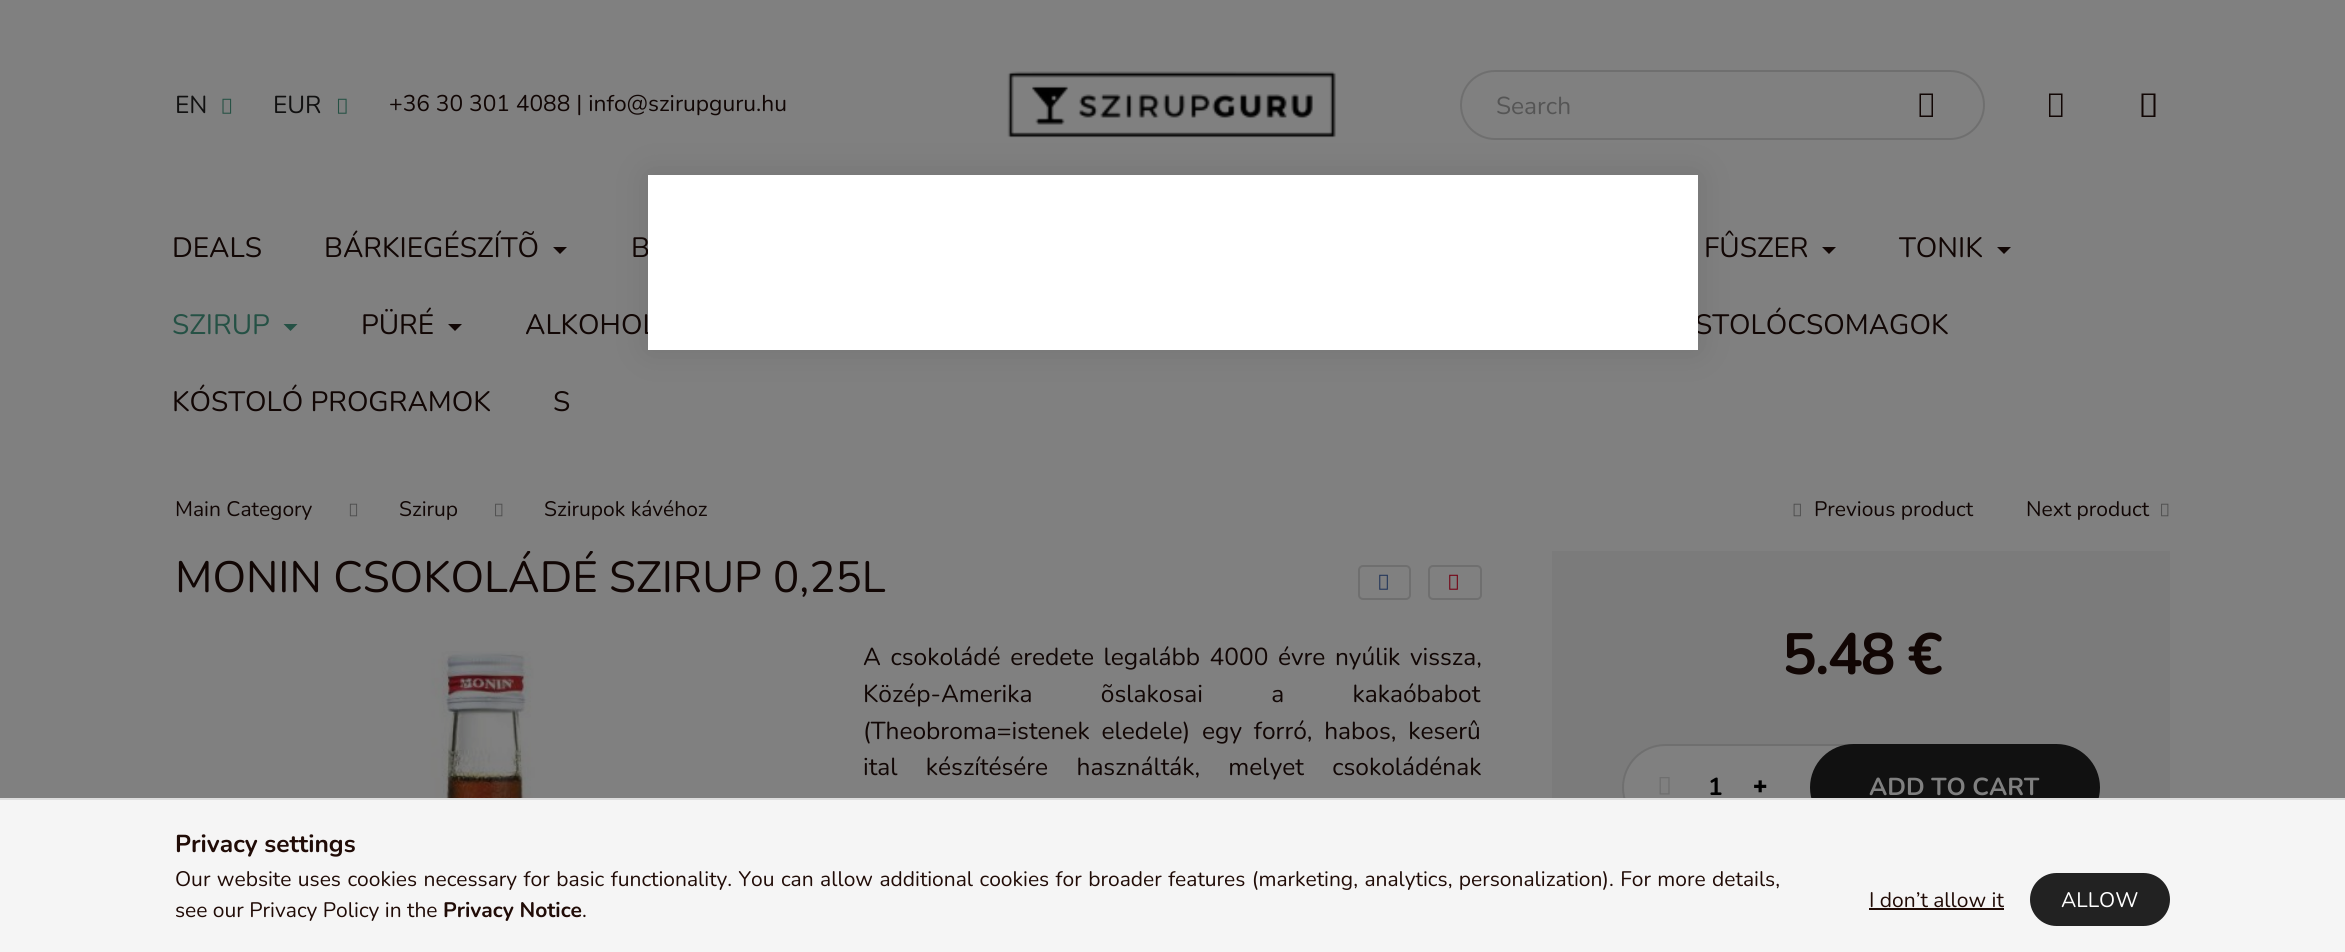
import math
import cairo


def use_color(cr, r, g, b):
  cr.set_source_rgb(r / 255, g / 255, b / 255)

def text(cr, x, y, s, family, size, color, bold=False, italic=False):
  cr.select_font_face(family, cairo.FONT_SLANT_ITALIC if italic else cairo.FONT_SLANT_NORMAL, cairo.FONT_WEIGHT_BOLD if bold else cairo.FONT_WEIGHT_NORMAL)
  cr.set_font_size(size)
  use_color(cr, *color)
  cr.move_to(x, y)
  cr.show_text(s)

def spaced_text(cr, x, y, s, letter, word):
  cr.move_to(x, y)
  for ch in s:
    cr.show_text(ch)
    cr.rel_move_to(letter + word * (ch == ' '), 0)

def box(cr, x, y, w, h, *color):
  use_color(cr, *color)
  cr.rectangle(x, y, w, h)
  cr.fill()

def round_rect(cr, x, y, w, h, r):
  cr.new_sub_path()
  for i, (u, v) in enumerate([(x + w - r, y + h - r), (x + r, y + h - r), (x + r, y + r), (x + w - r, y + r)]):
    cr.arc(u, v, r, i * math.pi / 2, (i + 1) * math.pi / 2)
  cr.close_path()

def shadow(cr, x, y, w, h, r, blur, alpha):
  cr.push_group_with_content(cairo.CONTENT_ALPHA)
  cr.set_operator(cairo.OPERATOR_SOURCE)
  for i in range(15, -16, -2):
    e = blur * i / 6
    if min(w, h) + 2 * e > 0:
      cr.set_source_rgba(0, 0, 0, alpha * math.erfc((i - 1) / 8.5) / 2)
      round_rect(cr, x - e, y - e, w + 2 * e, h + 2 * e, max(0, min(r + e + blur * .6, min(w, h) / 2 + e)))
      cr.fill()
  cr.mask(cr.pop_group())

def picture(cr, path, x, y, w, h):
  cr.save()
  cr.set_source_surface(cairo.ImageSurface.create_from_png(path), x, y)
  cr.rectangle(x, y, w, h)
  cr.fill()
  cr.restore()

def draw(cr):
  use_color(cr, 128, 128, 128)
  cr.paint()
  picture(cr, "img_01.png", 222, 98, 10, 16)
  picture(cr, "img_02.png", 337, 98, 10, 16)
  picture(cr, "img_03.png", 1007, 71, 329, 67)
  round_rect(cr, 1461, 71, 523, 68, 34)
  use_color(cr, 111, 111, 111)
  cr.stroke()
  use_color(cr, 17, 6, 4)
  cr.new_path()
  cr.move_to(1919.5, 117)
  cr.line_to(1919.5, 93.5)
  cr.line_to(1933, 93.5)
  cr.line_to(1933, 117)
  cr.close_path()
  cr.move_to(1921, 115.5)
  cr.line_to(1931.5, 115.5)
  cr.line_to(1931.5, 95)
  cr.line_to(1921, 95)
  cr.close_path()
  cr.fill()
  cr.new_path()
  cr.move_to(2049, 117)
  cr.line_to(2049, 93.5)
  cr.line_to(2062.5, 93.5)
  cr.line_to(2062.5, 117)
  cr.close_path()
  cr.move_to(2050.5, 115.5)
  cr.line_to(2061, 115.5)
  cr.line_to(2061, 95)
  cr.line_to(2050.5, 95)
  cr.close_path()
  cr.fill()
  cr.new_path()
  cr.move_to(2141.5, 117)
  cr.line_to(2141.5, 93.5)
  cr.line_to(2155.5, 93.5)
  cr.line_to(2155.5, 117)
  cr.close_path()
  cr.move_to(2143.5, 115.5)
  cr.line_to(2153.5, 115.5)
  cr.line_to(2153.5, 95)
  cr.line_to(2143.5, 95)
  cr.close_path()
  cr.fill()
  cr.new_path()
  cr.move_to(553, 247)
  cr.line_to(567, 247)
  cr.line_to(560, 254)
  cr.close_path()
  cr.fill()
  cr.new_path()
  cr.move_to(1822, 247)
  cr.line_to(1836, 247)
  cr.line_to(1829, 254)
  cr.close_path()
  cr.fill()
  cr.new_path()
  cr.move_to(1997, 247)
  cr.line_to(2011, 247)
  cr.line_to(2004, 254)
  cr.close_path()
  cr.fill()
  use_color(cr, 37, 81, 69)
  cr.new_path()
  cr.move_to(283.5, 324)
  cr.line_to(297.5, 324)
  cr.line_to(290.5, 331)
  cr.close_path()
  cr.fill()
  use_color(cr, 17, 6, 4)
  cr.new_path()
  cr.move_to(448, 324)
  cr.line_to(462, 324)
  cr.line_to(455, 331)
  cr.close_path()
  cr.fill()
  picture(cr, "img_04.png", 349, 503, 9, 14)
  picture(cr, "img_05.png", 495, 503, 8, 14)
  picture(cr, "img_06.png", 1793, 503, 8, 14)
  picture(cr, "img_05.png", 2161, 503, 8, 14)
  round_rect(cr, 1359, 566, 51, 33, 4)
  use_color(cr, 111, 111, 111)
  cr.stroke()
  picture(cr, "img_07.png", 1379, 574, 9, 16)
  round_rect(cr, 1429, 566, 52, 33, 4)
  cr.stroke()
  picture(cr, "img_08.png", 1449, 574, 9, 16)
  picture(cr, "img_09.png", 405, 651, 156, 147)
  box(cr, 1552, 551, 618, 247, 123, 123, 123)
  use_color(cr, 128, 128, 128)
  cr.new_path()
  cr.move_to(1665.5, 745)
  cr.line_to(1861, 745)
  cr.line_to(1861, 830)
  cr.line_to(1665.5, 830)
  cr.curve_to(1642, 830, 1623, 811, 1623, 787.5)
  cr.curve_to(1623, 764, 1642, 745, 1665.5, 745)
  cr.close_path()
  cr.fill_preserve()
  use_color(cr, 111, 111, 111)
  cr.stroke()
  picture(cr, "img_10.png", 1659, 777, 11, 18)
  use_color(cr, 17, 17, 17)
  round_rect(cr, 1811, 745, 288, 85, 42.5)
  cr.fill_preserve()
  cr.stroke()
  use_color(cr, 0, 0, 0)
  shadow(cr, 648, 175, 1050, 175, 0, 17.5, 0.1)
  box(cr, 0, 800, 2345, 152, 245, 245, 245)
  box(cr, 0, 798, 2345, 2, 221, 221, 221)
  box(cr, 1869, 908, 135, 2, 33, 12, 7)
  use_color(cr, 34, 34, 34)
  round_rect(cr, 2031, 874, 138, 51, 25.5)
  cr.fill_preserve()
  cr.stroke()
  text(cr, 175, 113, "EN", "Nunito", 24.5, (17, 17, 17))
  text(cr, 273, 113, "EUR", "Nunito", 24.5, (17, 17, 17))
  text(cr, 389, 111, "+36 30 301 4088 | info@szirupguru.hu", "Nunito", 22.75, (17, 6, 4))
  text(cr, 1496, 114, "Search", "Nunito", 24.5, (85, 85, 85))
  text(cr, 172, 257, "DEALS", "Nunito", 28, (17, 6, 4))
  text(cr, 324, 257, "BÁRKIEGÉSZÍTÕ", "Nunito", 28, (17, 6, 4))
  text(cr, 631, 257, "B", "Nunito", 28, (17, 6, 4))
  text(cr, 1704, 257, "FÛSZER", "Nunito", 28, (17, 6, 4))
  text(cr, 1899, 257, "TONIK", "Nunito", 28, (17, 6, 4))
  text(cr, 172, 334, "SZIRUP", "Nunito", 28, (37, 81, 69))
  text(cr, 361, 334, "PÜRÉ", "Nunito", 28, (17, 6, 4))
  text(cr, 525, 334, "ALKOHOL", "Nunito", 28, (17, 6, 4))
  text(cr, 1695, 334, "STOLÓCSOMAGOK", "Nunito", 28, (17, 6, 4))
  text(cr, 172, 411, "KÓSTOLÓ PROGRAMOK", "Nunito", 28, (17, 6, 4))
  text(cr, 553, 411, "S", "Nunito", 28, (17, 6, 4))
  text(cr, 175, 516, "Main Category", "Nunito", 21, (17, 6, 4))
  text(cr, 399, 516, "Szirup", "Nunito", 21, (17, 6, 4))
  text(cr, 544, 516, "Szirupok kávéhoz", "Nunito", 21, (17, 6, 4))
  text(cr, 1814, 516, "Previous product", "Nunito", 21, (17, 6, 4))
  text(cr, 2026, 516, "Next product", "Nunito", 21, (17, 6, 4))
  cr.save()
  cr.rectangle(175, 551, 711, 53)
  cr.clip()
  text(cr, 175, 592, "MONIN CSOKOLÁDÉ SZIRUP 0,25L", "Nunito", 43.75, (17, 6, 4))
  cr.restore()
  cr.set_font_size(24.5)
  spaced_text(cr, 863, 665, "A csokoládé eredete legalább 4000 évre nyúlik vissza,", 0, 3.25)
  spaced_text(cr, 863, 702, "Közép-Amerika õslakosai a kakaóbabot", 0, 62)
  spaced_text(cr, 863, 739, "(Theobroma=istenek eledele) egy forró, habos, keserû", 0, 5.5)
  spaced_text(cr, 863, 775, "ital készítésére használták, melyet csokoládénak", 0, 22)
  cr.select_font_face("Nunito", cairo.FONT_SLANT_NORMAL, cairo.FONT_WEIGHT_BOLD)
  cr.set_font_size(58)
  spaced_text(cr, 1782, 674, "5.48 €", -1.75, 0)
  text(cr, 1708, 795, "1", "Nunito", 24.5, (0, 0, 0), bold=True)
  text(cr, 1753, 795, "+", "Noto Sans Black", 24.5, (0, 0, 0))
  text(cr, 1869, 795, "ADD TO CART", "Nunito", 24.5, (128, 128, 128), bold=True)
  box(cr, 648, 175, 1050, 175, 255, 255, 255)
  text(cr, 175, 852, "Privacy settings", "Nunito", 24.5, (33, 12, 7), bold=True)
  cr.select_font_face("Nunito")
  cr.set_font_size(21)
  spaced_text(cr, 175, 886, "Our website uses cookies necessary for basic functionality. You can allow additional cookies for broader features (marketing, analytics, personalization). For more details,", 0, 1)
  text(cr, 175, 917, "see our Privacy Policy in the", "Nunito", 21, (33, 12, 7))
  text(cr, 443, 917, "Privacy Notice", "Nunito", 21, (33, 12, 7), bold=True)
  text(cr, 582, 917, ".", "Nunito", 21, (33, 12, 7))
  text(cr, 1869, 907, "I don’t allow it", "Nunito", 21, (33, 12, 7))
  text(cr, 2061, 907, "ALLOW", "Nunito", 21, (255, 255, 255))


surface = cairo.ImageSurface(cairo.FORMAT_RGB24, 2345, 952)
cr = cairo.Context(surface)
options = cairo.FontOptions()
options.set_hint_metrics(cairo.HINT_METRICS_OFF)
options.set_hint_style(cairo.HINT_STYLE_NONE)
cr.set_font_options(options)
cr.set_miter_limit(4)
draw(cr)
surface.write_to_png("out.png")
